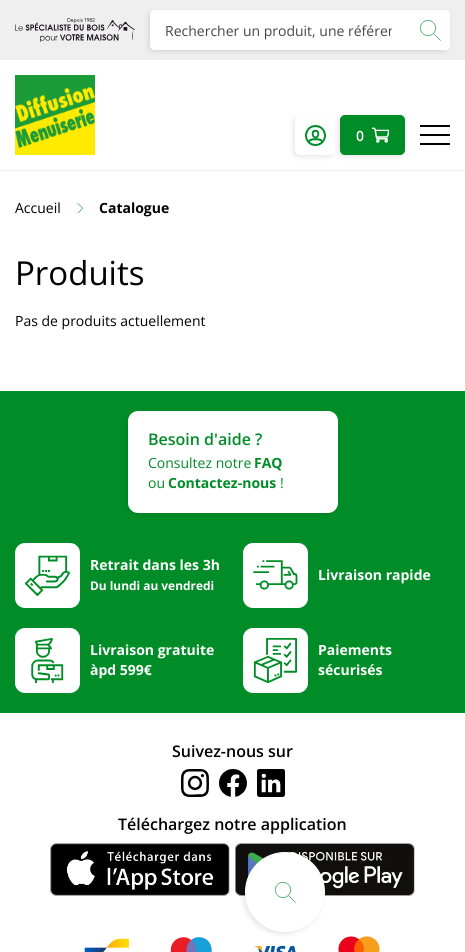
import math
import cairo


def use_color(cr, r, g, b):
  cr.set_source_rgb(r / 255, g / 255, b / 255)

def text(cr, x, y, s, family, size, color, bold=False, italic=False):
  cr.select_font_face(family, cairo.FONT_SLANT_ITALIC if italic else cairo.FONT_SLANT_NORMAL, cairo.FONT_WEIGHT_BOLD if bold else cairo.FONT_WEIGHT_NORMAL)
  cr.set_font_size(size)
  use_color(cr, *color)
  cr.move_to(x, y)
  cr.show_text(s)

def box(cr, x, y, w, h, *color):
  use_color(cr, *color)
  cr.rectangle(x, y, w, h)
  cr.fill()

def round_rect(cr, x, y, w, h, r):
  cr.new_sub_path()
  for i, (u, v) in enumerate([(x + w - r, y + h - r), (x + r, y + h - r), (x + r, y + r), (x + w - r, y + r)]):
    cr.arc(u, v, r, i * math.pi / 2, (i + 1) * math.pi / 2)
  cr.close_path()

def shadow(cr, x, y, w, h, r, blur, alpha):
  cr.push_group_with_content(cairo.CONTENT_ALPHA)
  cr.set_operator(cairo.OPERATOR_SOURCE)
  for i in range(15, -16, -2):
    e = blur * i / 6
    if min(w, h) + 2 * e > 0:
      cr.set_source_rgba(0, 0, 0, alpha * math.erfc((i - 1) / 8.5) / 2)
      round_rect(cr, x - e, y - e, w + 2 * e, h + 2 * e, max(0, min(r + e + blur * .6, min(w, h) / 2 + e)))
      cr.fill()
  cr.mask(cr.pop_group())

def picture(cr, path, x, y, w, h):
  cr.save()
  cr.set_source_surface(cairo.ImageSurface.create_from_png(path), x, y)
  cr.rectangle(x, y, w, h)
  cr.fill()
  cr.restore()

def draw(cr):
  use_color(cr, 255, 255, 255)
  cr.paint()
  box(cr, 0, 170, 465, 1, 239, 239, 239)
  box(cr, 0, 0, 465, 60, 239, 239, 239)
  picture(cr, "img_01.png", 15, 18, 120, 24)
  use_color(cr, 0, 0, 0)
  shadow(cr, 148, 12, 300, 40, 5, 2.5, 0.1)
  use_color(cr, 255, 255, 255)
  cr.new_path()
  cr.move_to(155, 10)
  cr.line_to(411, 10)
  cr.line_to(411, 50)
  cr.line_to(155, 50)
  cr.curve_to(152, 50, 150, 48, 150, 45)
  cr.line_to(150, 15)
  cr.curve_to(150, 12, 152, 10, 155, 10)
  cr.close_path()
  cr.fill()
  cr.new_path()
  cr.move_to(410.5, 10.5)
  cr.line_to(445, 10.5)
  cr.curve_to(447.5, 10.5, 449.5, 12.5, 449.5, 15)
  cr.line_to(449.5, 45)
  cr.curve_to(449.5, 47.5, 447.5, 49.5, 445, 49.5)
  cr.line_to(410.5, 49.5)
  cr.close_path()
  cr.fill_preserve()
  cr.set_line_width(1)
  cr.stroke()
  picture(cr, "img_02.png", 420, 20, 21, 21)
  picture(cr, "img_03.png", 15, 75, 80, 80)
  use_color(cr, 0, 0, 0)
  shadow(cr, 293, 117, 40, 40, 5, 2.5, 0.1)
  use_color(cr, 255, 255, 255)
  round_rect(cr, 295.5, 115.5, 39, 39, 4.5)
  cr.fill_preserve()
  cr.stroke()
  picture(cr, "img_04.png", 305, 125, 21, 21)
  use_color(cr, 0, 0, 0)
  shadow(cr, 338, 117, 65, 40, 5, 2.5, 0.1)
  use_color(cr, 0, 141, 39)
  round_rect(cr, 340.5, 115.5, 64, 39, 4.5)
  cr.fill_preserve()
  cr.stroke()
  picture(cr, "img_05.png", 372, 127, 17, 16)
  box(cr, 420, 125, 30, 2, 0, 0, 0)
  box(cr, 420, 134, 30, 2, 0, 0, 0)
  box(cr, 420, 143, 30, 2, 0, 0, 0)
  picture(cr, "img_06.png", 77, 203, 7, 10)
  picture(cr, "img_15.png", 235, 843, 180, 53)
  use_color(cr, 0, 0, 0)
  shadow(cr, 243, 854, 80, 80, 40, 2.5, 0.1)
  use_color(cr, 255, 255, 255)
  cr.arc(285, 892, 39.5, 0, 2 * math.pi)
  cr.fill_preserve()
  cr.stroke()
  picture(cr, "img_02.png", 275, 882, 21, 21)
  box(cr, 0, 391, 465, 322, 0, 141, 39)
  use_color(cr, 0, 0, 0)
  shadow(cr, 126, 413, 210, 102, 10, 2.5, 0.1)
  use_color(cr, 255, 255, 255)
  round_rect(cr, 128, 411, 210, 102, 10)
  cr.fill()
  round_rect(cr, 15, 543, 65, 65, 10)
  cr.fill()
  picture(cr, "img_07.png", 25, 555, 45, 41)
  round_rect(cr, 243, 543, 65, 65, 10)
  cr.fill()
  picture(cr, "img_08.png", 253, 560, 45, 30)
  round_rect(cr, 15, 628, 65, 65, 10)
  cr.fill()
  picture(cr, "img_09.png", 31, 638, 33, 45)
  round_rect(cr, 243, 628, 65, 65, 10)
  cr.fill()
  picture(cr, "img_10.png", 253, 638, 44, 45)
  picture(cr, "img_11.png", 181, 769, 28, 28)
  picture(cr, "img_12.png", 219, 769, 28, 28)
  picture(cr, "img_13.png", 257, 769, 28, 28)
  picture(cr, "img_14.png", 50, 843, 180, 53)
  picture(cr, "img_16.png", 84, 938, 45, 14)
  picture(cr, "img_17.png", 170, 937, 42, 15)
  picture(cr, "img_18.png", 254, 945, 42, 7)
  picture(cr, "img_19.png", 338, 936, 42, 16)
  cr.save()
  cr.rectangle(165, 21, 227, 19)
  cr.clip()
  text(cr, 165, 36, "Rechercher un produit, une référen", "Open Sans", 14, (70, 70, 70))
  cr.restore()
  text(cr, 356, 141, "0", "Open Sans SemiBold", 14, (255, 255, 255))
  text(cr, 15, 213, "Accueil", "Open Sans", 14, (0, 0, 0))
  text(cr, 99, 213, "Catalogue", "Open Sans", 14, (0, 0, 0), bold=True)
  text(cr, 15, 285, "Produits", "Open Sans", 33, (0, 0, 0))
  text(cr, 15, 326, "Pas de produits actuellement", "Open Sans", 14, (0, 0, 0))
  text(cr, 148, 445, "Besoin d'aide ?", "Open Sans SemiBold", 16, (0, 141, 39))
  text(cr, 148, 468, "Consultez notre", "Open Sans", 14, (0, 141, 39))
  text(cr, 254, 468, "FAQ", "Open Sans", 14, (0, 141, 39), bold=True)
  text(cr, 148, 488, "ou", "Open Sans", 14, (0, 141, 39))
  text(cr, 168, 488, "Contactez-nous", "Open Sans", 14, (0, 141, 39), bold=True)
  text(cr, 280, 488, "!", "Open Sans", 14, (0, 141, 39))
  text(cr, 90, 570, "Retrait dans les 3h", "Open Sans", 14, (255, 255, 255), bold=True)
  text(cr, 90, 590, "Du lundi au vendredi", "Open Sans", 11.9, (255, 255, 255), bold=True)
  text(cr, 318, 580, "Livraison rapide", "Open Sans", 14, (255, 255, 255), bold=True)
  text(cr, 90, 655, "Livraison gratuite", "Open Sans", 14, (255, 255, 255), bold=True)
  text(cr, 90, 675, "àpd 599€", "Open Sans", 14, (255, 255, 255), bold=True)
  text(cr, 318, 655, "Paiements", "Open Sans", 14, (255, 255, 255), bold=True)
  text(cr, 318, 675, "sécurisés", "Open Sans", 14, (255, 255, 255), bold=True)
  text(cr, 172, 757, "Suivez-nous sur", "Open Sans SemiBold", 16, (0, 0, 0))
  text(cr, 118, 830, "Téléchargez notre application", "Open Sans SemiBold", 16, (0, 0, 0))


surface = cairo.ImageSurface(cairo.FORMAT_RGB24, 465, 952)
cr = cairo.Context(surface)
options = cairo.FontOptions()
options.set_hint_metrics(cairo.HINT_METRICS_OFF)
options.set_hint_style(cairo.HINT_STYLE_NONE)
cr.set_font_options(options)
cr.set_miter_limit(4)
draw(cr)
surface.write_to_png("out.png")
